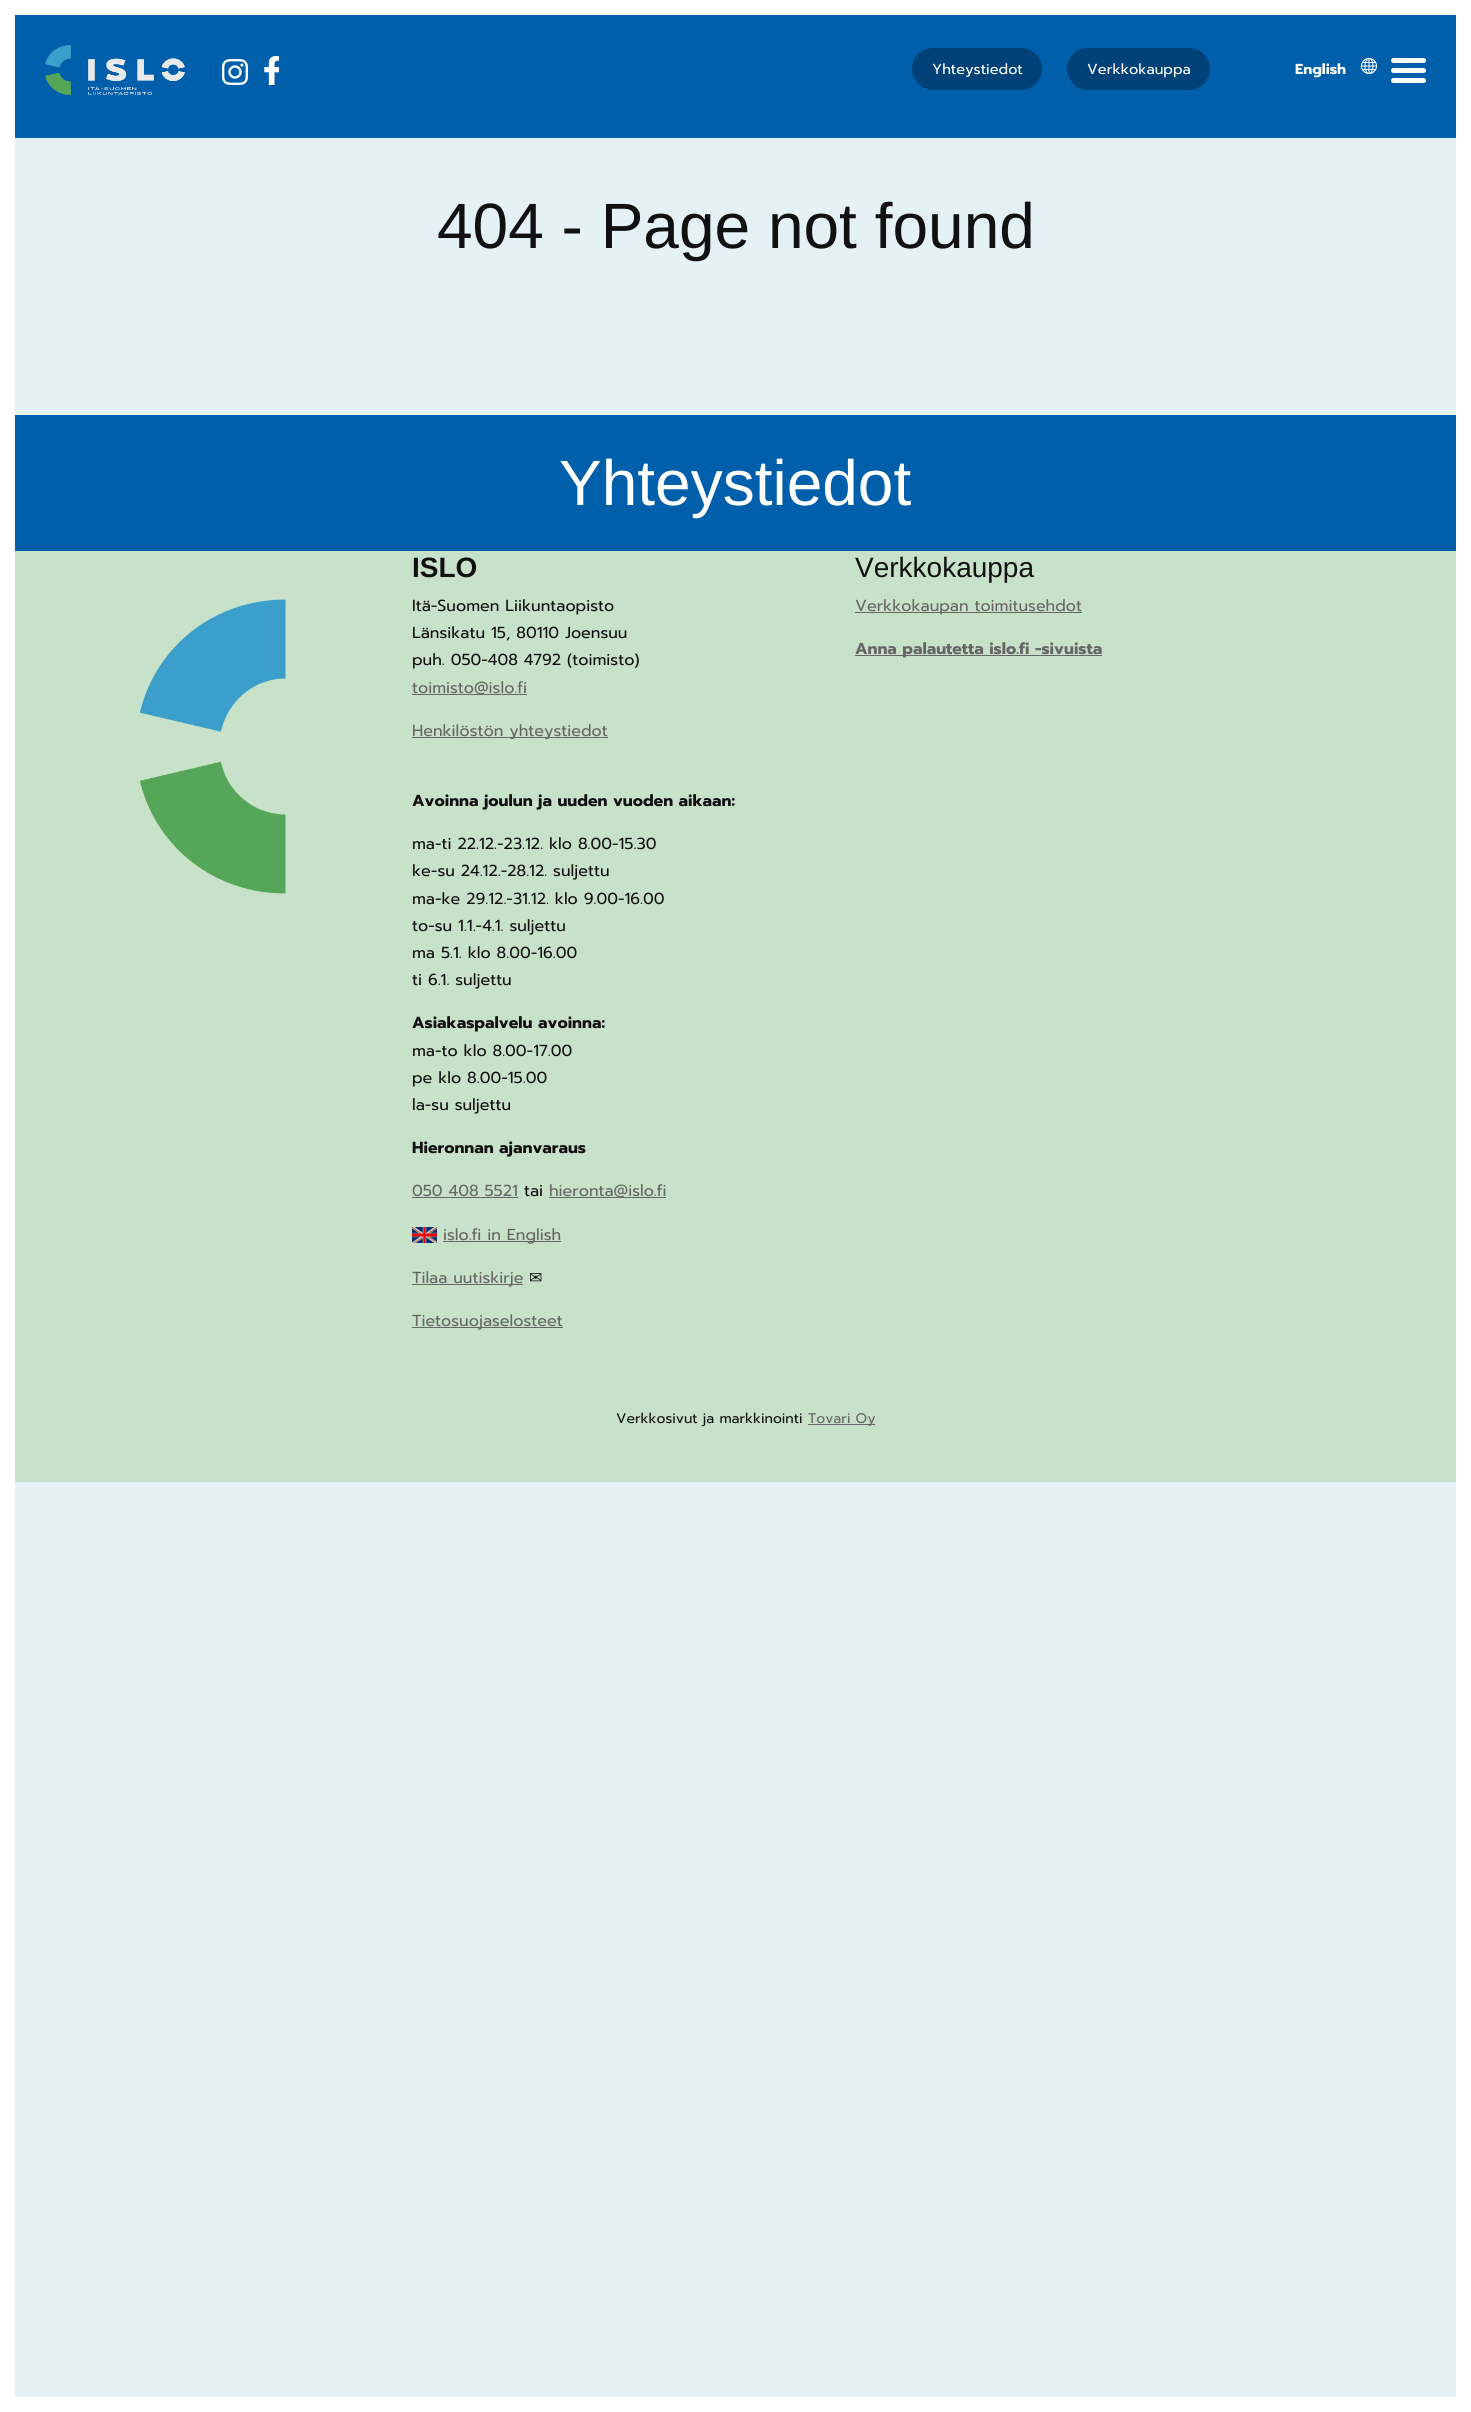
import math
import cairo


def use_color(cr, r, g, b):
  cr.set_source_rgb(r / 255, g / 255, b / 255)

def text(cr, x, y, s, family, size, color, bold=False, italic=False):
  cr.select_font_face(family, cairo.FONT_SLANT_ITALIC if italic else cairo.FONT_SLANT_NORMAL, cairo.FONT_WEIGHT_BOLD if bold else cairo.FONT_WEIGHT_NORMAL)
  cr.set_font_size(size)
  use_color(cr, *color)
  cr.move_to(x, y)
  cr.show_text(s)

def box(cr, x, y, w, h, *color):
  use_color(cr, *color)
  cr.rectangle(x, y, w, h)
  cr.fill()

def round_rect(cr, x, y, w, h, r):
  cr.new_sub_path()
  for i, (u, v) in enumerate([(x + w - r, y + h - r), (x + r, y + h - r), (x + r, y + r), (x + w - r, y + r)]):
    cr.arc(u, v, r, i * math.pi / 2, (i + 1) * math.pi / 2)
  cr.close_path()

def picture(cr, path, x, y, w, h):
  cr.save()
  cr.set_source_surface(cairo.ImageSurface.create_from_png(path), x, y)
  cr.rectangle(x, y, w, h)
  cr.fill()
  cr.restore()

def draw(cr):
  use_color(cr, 255, 255, 255)
  cr.paint()
  box(cr, 15, 138, 1441, 2259, 228, 242, 245)
  box(cr, 15, 15, 1441, 123, 0, 95, 171)
  picture(cr, "img_01.png", 45, 45, 140, 50)
  picture(cr, "img_02.png", 222, 59, 26, 26)
  picture(cr, "img_03.png", 264, 56, 15, 29)
  use_color(cr, 0, 65, 119)
  round_rect(cr, 912, 48, 130, 42, 21)
  cr.fill()
  round_rect(cr, 1067, 48, 143, 42, 21)
  cr.fill()
  picture(cr, "img_04.png", 1361, 58, 16, 16)
  use_color(cr, 255, 255, 255)
  round_rect(cr, 1391, 58, 35, 5, 2.5)
  cr.fill()
  round_rect(cr, 1391, 68, 35, 5, 2.5)
  cr.fill()
  round_rect(cr, 1391, 78, 35, 5, 2.5)
  cr.fill()
  box(cr, 15, 551, 1441, 931, 199, 226, 200)
  box(cr, 15, 415, 1441, 136, 0, 95, 171)
  picture(cr, "img_05.png", 140, 599, 146, 295)
  box(cr, 412, 694, 115, 1, 102, 102, 102)
  box(cr, 412, 737, 196, 1, 102, 102, 102)
  box(cr, 412, 1197, 106, 1, 102, 102, 102)
  box(cr, 549, 1197, 117, 1, 102, 102, 102)
  picture(cr, "img_06.png", 412, 1227, 25, 16)
  box(cr, 443, 1241, 118, 1, 102, 102, 102)
  box(cr, 412, 1284, 111, 1, 102, 102, 102)
  box(cr, 412, 1327, 151, 1, 102, 102, 102)
  box(cr, 855, 612, 227, 1, 102, 102, 102)
  box(cr, 855, 655, 247, 1, 102, 102, 102)
  box(cr, 808, 1424, 67, 1, 102, 102, 102)
  text(cr, 932, 74, "Yhteystiedot", "Prompt", 14.5, (255, 255, 255))
  text(cr, 1087, 74, "Verkkokauppa", "Prompt", 14.5, (255, 255, 255))
  text(cr, 1295, 74, "English", "Prompt", 14.5, (255, 255, 255), bold=True)
  text(cr, 437, 248, "404 - Page not found", "Liberation Sans", 64, (17, 17, 17))
  text(cr, 559, 505, "Yhteystiedot", "Liberation Sans", 64, (255, 255, 255))
  text(cr, 412, 577, "ISLO", "Liberation Sans", 28, (17, 17, 17), bold=True)
  text(cr, 412, 611, "Itä-Suomen Liikuntaopisto", "Prompt", 16, (17, 17, 17))
  text(cr, 412, 638, "Länsikatu 15, 80110 Joensuu", "Prompt", 16, (17, 17, 17))
  text(cr, 412, 665, "puh. 050-408 4792 (toimisto)", "Prompt", 16, (17, 17, 17))
  text(cr, 412, 693, "toimisto@islo.fi", "Prompt", 16, (102, 102, 102))
  text(cr, 412, 736, "Henkilöstön yhteystiedot", "Prompt", 16, (102, 102, 102))
  text(cr, 412, 806, "Avoinna joulun ja uuden vuoden aikaan:", "Prompt", 16, (17, 17, 17), bold=True)
  text(cr, 412, 849, "ma-ti 22.12.-23.12. klo 8.00-15.30", "Prompt", 16, (17, 17, 17))
  text(cr, 412, 876, "ke-su 24.12.-28.12. suljettu", "Prompt", 16, (17, 17, 17))
  text(cr, 412, 904, "ma-ke 29.12.-31.12. klo 9.00-16.00", "Prompt", 16, (17, 17, 17))
  text(cr, 412, 931, "to-su 1.1.-4.1. suljettu", "Prompt", 16, (17, 17, 17))
  text(cr, 412, 958, "ma 5.1. klo 8.00-16.00", "Prompt", 16, (17, 17, 17))
  text(cr, 412, 985, "ti 6.1. suljettu", "Prompt", 16, (17, 17, 17))
  text(cr, 412, 1028, "Asiakaspalvelu", "Prompt", 16, (17, 17, 17), bold=True)
  text(cr, 538, 1028, "avoinna:", "Prompt", 16, (17, 17, 17), bold=True)
  text(cr, 412, 1056, "ma-to klo 8.00-17.00", "Prompt", 16, (17, 17, 17))
  text(cr, 412, 1083, "pe klo 8.00-15.00", "Prompt", 16, (17, 17, 17))
  text(cr, 412, 1110, "la-su suljettu", "Prompt", 16, (17, 17, 17))
  text(cr, 412, 1153, "Hieronnan ajanvaraus", "Prompt", 16, (17, 17, 17), bold=True)
  text(cr, 412, 1196, "050 408 5521", "Prompt", 16, (102, 102, 102))
  text(cr, 524, 1196, "tai", "Prompt", 16, (17, 17, 17))
  text(cr, 549, 1196, "hieronta@islo.fi", "Prompt", 16, (102, 102, 102))
  text(cr, 443, 1240, "islo.fi in English", "Prompt", 16, (102, 102, 102))
  text(cr, 412, 1283, "Tilaa uutiskirje", "Prompt", 16, (102, 102, 102))
  text(cr, 529, 1283, "✉", "DejaVu Sans", 16, (17, 17, 17))
  text(cr, 412, 1326, "Tietosuojaselosteet", "Prompt", 16, (102, 102, 102))
  text(cr, 855, 577, "Verkkokauppa", "Liberation Sans", 28, (17, 17, 17))
  text(cr, 855, 611, "Verkkokaupan toimitusehdot", "Prompt", 16, (102, 102, 102))
  text(cr, 855, 654, "Anna palautetta islo.fi -sivuista", "Prompt", 16, (102, 102, 102), bold=True)
  text(cr, 616, 1423, "Verkkosivut ja markkinointi", "Prompt", 14, (17, 17, 17))
  text(cr, 808, 1423, "Tovari Oy", "Prompt", 14, (102, 102, 102))


surface = cairo.ImageSurface(cairo.FORMAT_RGB24, 1471, 2412)
cr = cairo.Context(surface)
options = cairo.FontOptions()
options.set_hint_metrics(cairo.HINT_METRICS_OFF)
options.set_hint_style(cairo.HINT_STYLE_NONE)
cr.set_font_options(options)
cr.set_miter_limit(4)
draw(cr)
surface.write_to_png("out.png")
